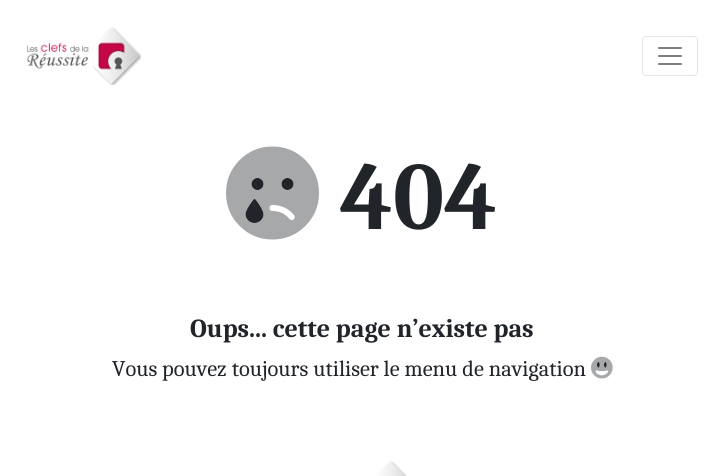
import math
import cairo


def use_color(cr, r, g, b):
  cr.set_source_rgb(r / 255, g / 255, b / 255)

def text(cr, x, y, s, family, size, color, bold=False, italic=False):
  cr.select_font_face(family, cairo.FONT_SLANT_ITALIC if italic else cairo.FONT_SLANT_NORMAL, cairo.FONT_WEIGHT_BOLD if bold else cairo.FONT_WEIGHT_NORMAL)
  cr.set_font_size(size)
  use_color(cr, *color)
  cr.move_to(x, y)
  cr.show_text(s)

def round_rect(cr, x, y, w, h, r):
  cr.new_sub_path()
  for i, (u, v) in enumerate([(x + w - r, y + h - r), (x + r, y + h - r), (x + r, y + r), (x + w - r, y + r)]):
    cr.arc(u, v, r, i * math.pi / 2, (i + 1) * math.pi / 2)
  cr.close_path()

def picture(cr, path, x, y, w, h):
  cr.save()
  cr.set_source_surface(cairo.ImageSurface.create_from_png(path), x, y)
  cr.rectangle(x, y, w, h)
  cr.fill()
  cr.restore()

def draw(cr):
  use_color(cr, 255, 255, 255)
  cr.paint()
  picture(cr, "img_01.png", 27, 27, 114, 58)
  round_rect(cr, 642.5, 36.5, 55, 39, 3.5)
  use_color(cr, 230, 230, 230)
  cr.set_line_width(1)
  cr.stroke()
  picture(cr, "img_02.png", 658, 47, 24, 18)
  picture(cr, "img_04.png", 245, 178, 49, 45)
  picture(cr, "img_03.png", 226, 146, 93, 94)
  picture(cr, "img_06.png", 597, 362, 10, 6)
  picture(cr, "img_05.png", 591, 356, 22, 23)
  picture(cr, "img_07.png", 377, 461, 31, 15)
  text(cr, 340, 229, "404", "Caladea", 96, (33, 37, 41), bold=True)
  text(cr, 190, 337, "Oups... cette page n’existe pas", "Caladea", 26, (33, 37, 41), bold=True)
  text(cr, 112, 376, "Vous pouvez toujours utiliser le menu de navigation", "Caladea", 22.4, (33, 37, 41))


surface = cairo.ImageSurface(cairo.FORMAT_RGB24, 724, 476)
cr = cairo.Context(surface)
options = cairo.FontOptions()
options.set_hint_metrics(cairo.HINT_METRICS_OFF)
options.set_hint_style(cairo.HINT_STYLE_NONE)
cr.set_font_options(options)
cr.set_miter_limit(4)
draw(cr)
surface.write_to_png("out.png")
